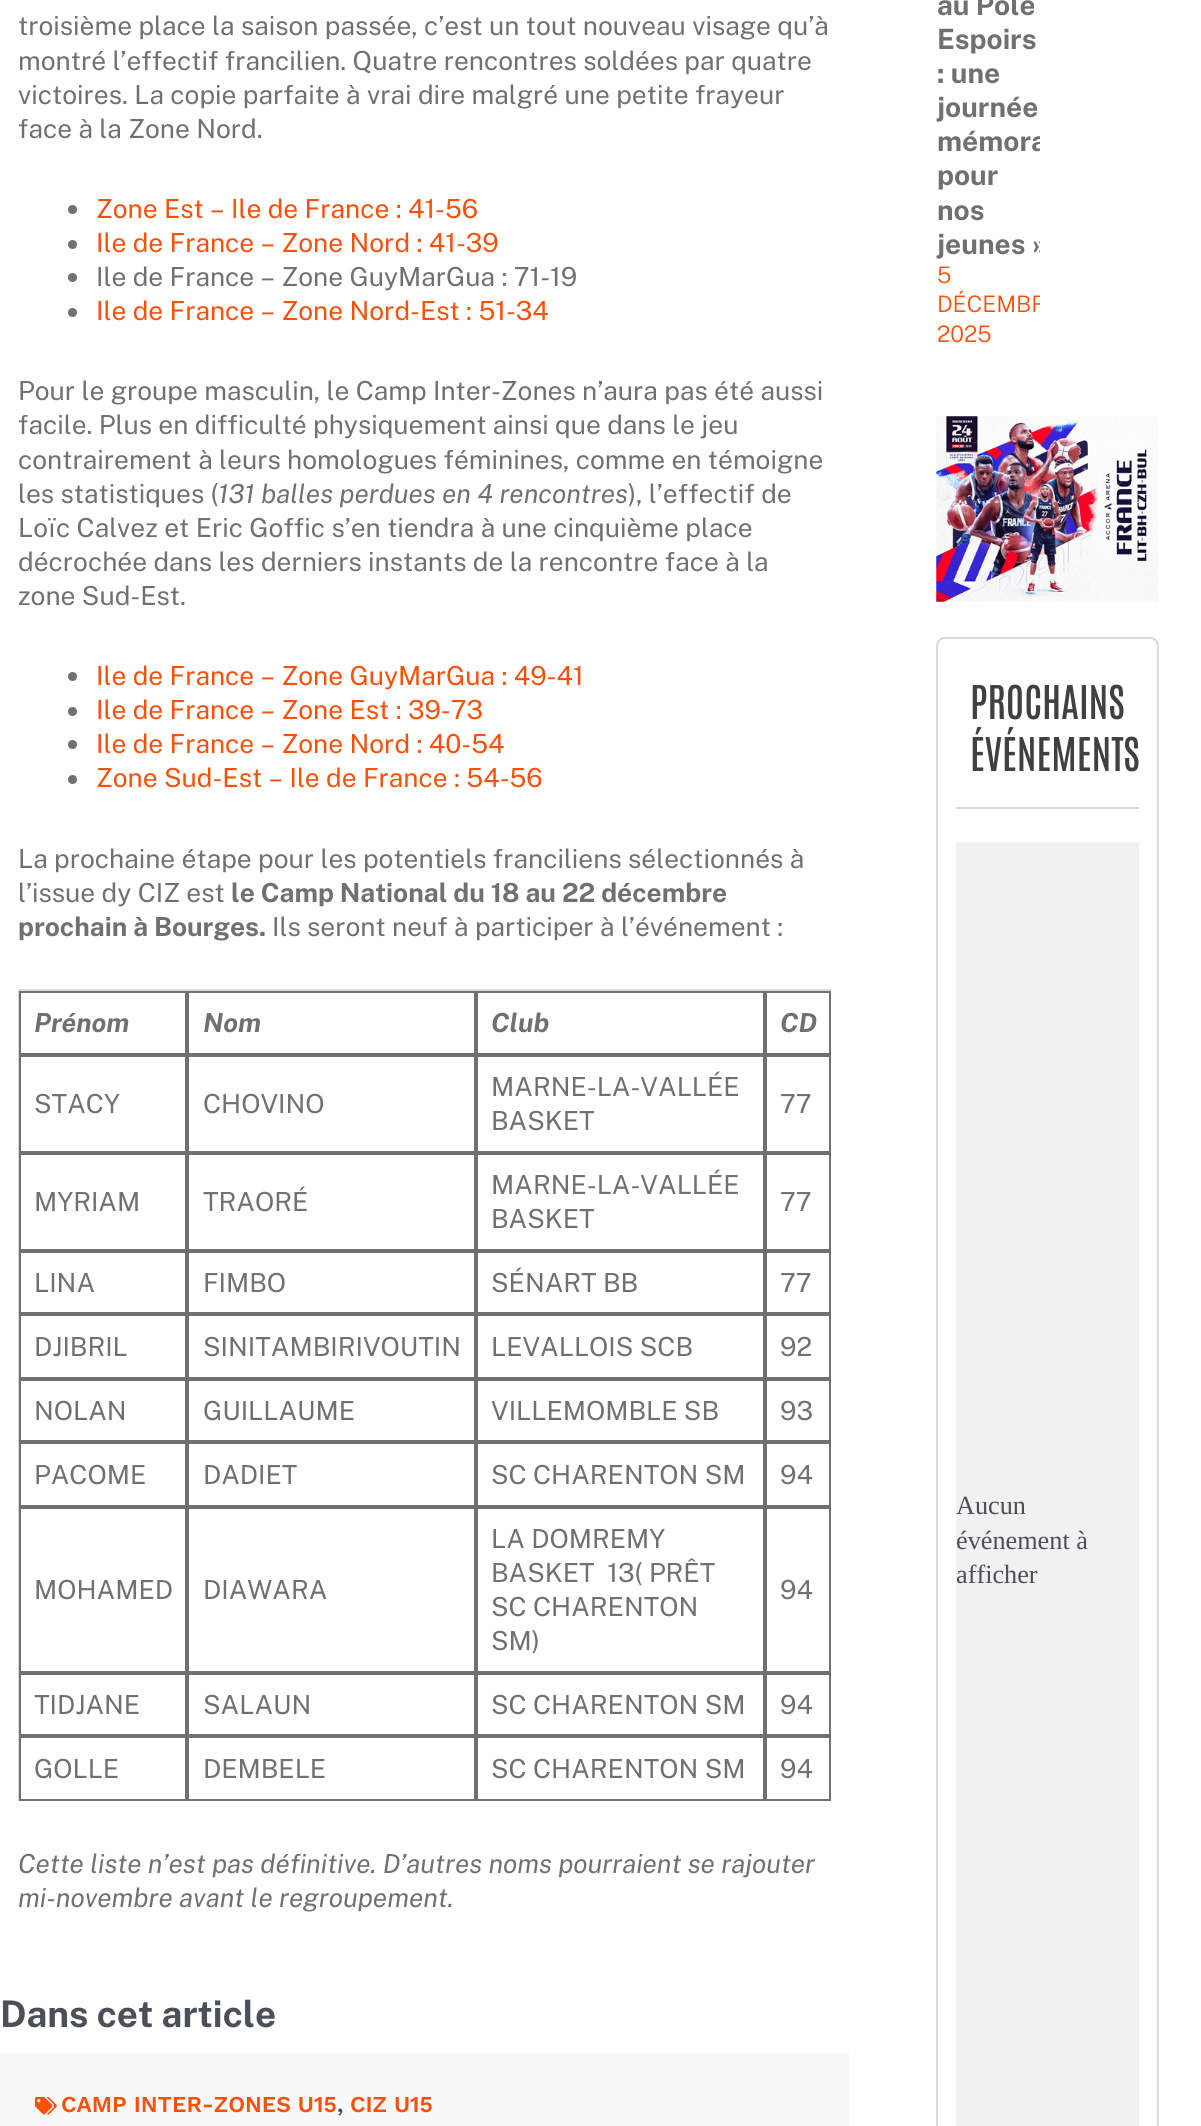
import math
import cairo


def use_color(cr, r, g, b):
  cr.set_source_rgb(r / 255, g / 255, b / 255)

def text(cr, x, y, s, family, size, color, bold=False, italic=False):
  cr.select_font_face(family, cairo.FONT_SLANT_ITALIC if italic else cairo.FONT_SLANT_NORMAL, cairo.FONT_WEIGHT_BOLD if bold else cairo.FONT_WEIGHT_NORMAL)
  cr.set_font_size(size)
  use_color(cr, *color)
  cr.move_to(x, y)
  cr.show_text(s)

def box(cr, x, y, w, h, *color):
  use_color(cr, *color)
  cr.rectangle(x, y, w, h)
  cr.fill()

def round_rect(cr, x, y, w, h, r):
  cr.new_sub_path()
  for i, (u, v) in enumerate([(x + w - r, y + h - r), (x + r, y + h - r), (x + r, y + r), (x + w - r, y + r)]):
    cr.arc(u, v, r, i * math.pi / 2, (i + 1) * math.pi / 2)
  cr.close_path()

def picture(cr, path, x, y, w, h):
  cr.save()
  cr.set_source_surface(cairo.ImageSurface.create_from_png(path), x, y)
  cr.rectangle(x, y, w, h)
  cr.fill()
  cr.restore()

def draw(cr):
  use_color(cr, 255, 255, 255)
  cr.paint()
  use_color(cr, 112, 112, 112)
  cr.arc(72.5, 209.5, 4.5, 0, 2 * math.pi)
  cr.fill()
  cr.arc(72.5, 244.5, 4.5, 0, 2 * math.pi)
  cr.fill()
  cr.arc(72.5, 277.5, 4.5, 0, 2 * math.pi)
  cr.fill()
  cr.arc(72.5, 312.5, 4.5, 0, 2 * math.pi)
  cr.fill()
  cr.arc(72.5, 676.5, 4.5, 0, 2 * math.pi)
  cr.fill()
  cr.arc(72.5, 711.5, 4.5, 0, 2 * math.pi)
  cr.fill()
  cr.arc(72.5, 744.5, 4.5, 0, 2 * math.pi)
  cr.fill()
  cr.arc(72.5, 779.5, 4.5, 0, 2 * math.pi)
  cr.fill()
  box(cr, 18, 989, 813, 2, 221, 221, 221)
  box(cr, 18, 989, 2, 812, 221, 221, 221)
  cr.rectangle(20, 992, 166, 62)
  use_color(cr, 112, 112, 112)
  cr.stroke()
  cr.rectangle(188, 992, 287, 62)
  cr.stroke()
  cr.rectangle(477, 992, 287, 62)
  cr.stroke()
  cr.rectangle(766, 992, 64, 62)
  cr.stroke()
  cr.rectangle(20, 1056, 166, 96)
  cr.stroke()
  cr.rectangle(188, 1056, 287, 96)
  cr.stroke()
  cr.rectangle(477, 1056, 287, 96)
  cr.stroke()
  cr.rectangle(766, 1056, 64, 96)
  cr.stroke()
  cr.rectangle(20, 1154, 166, 96)
  cr.stroke()
  cr.rectangle(188, 1154, 287, 96)
  cr.stroke()
  cr.rectangle(477, 1154, 287, 96)
  cr.stroke()
  cr.rectangle(766, 1154, 64, 96)
  cr.stroke()
  cr.rectangle(20, 1252, 166, 61)
  cr.stroke()
  cr.rectangle(188, 1252, 287, 61)
  cr.stroke()
  cr.rectangle(477, 1252, 287, 61)
  cr.stroke()
  cr.rectangle(766, 1252, 64, 61)
  cr.stroke()
  cr.rectangle(20, 1315, 166, 63)
  cr.stroke()
  cr.rectangle(188, 1315, 287, 63)
  cr.stroke()
  cr.rectangle(477, 1315, 287, 63)
  cr.stroke()
  cr.rectangle(766, 1315, 64, 63)
  cr.stroke()
  cr.rectangle(20, 1380, 166, 61)
  cr.stroke()
  cr.rectangle(188, 1380, 287, 61)
  cr.stroke()
  cr.rectangle(477, 1380, 287, 61)
  cr.stroke()
  cr.rectangle(766, 1380, 64, 61)
  cr.stroke()
  cr.rectangle(20, 1443, 166, 63)
  cr.stroke()
  cr.rectangle(188, 1443, 287, 63)
  cr.stroke()
  cr.rectangle(477, 1443, 287, 63)
  cr.stroke()
  cr.rectangle(766, 1443, 64, 63)
  cr.stroke()
  cr.rectangle(20, 1508, 166, 164)
  cr.stroke()
  cr.rectangle(188, 1508, 287, 164)
  cr.stroke()
  cr.rectangle(477, 1508, 287, 164)
  cr.stroke()
  cr.rectangle(766, 1508, 64, 164)
  cr.stroke()
  cr.rectangle(20, 1674, 166, 61)
  cr.stroke()
  cr.rectangle(188, 1674, 287, 61)
  cr.stroke()
  cr.rectangle(477, 1674, 287, 61)
  cr.stroke()
  cr.rectangle(766, 1674, 64, 61)
  cr.stroke()
  cr.rectangle(20, 1737, 166, 63)
  cr.stroke()
  cr.rectangle(188, 1737, 287, 63)
  cr.stroke()
  cr.rectangle(477, 1737, 287, 63)
  cr.stroke()
  cr.rectangle(766, 1737, 64, 63)
  cr.stroke()
  box(cr, 0, 2053, 849, 73, 248, 248, 248)
  picture(cr, "img_01.png", 35, 2096, 22, 19)
  picture(cr, "img_02.png", 936, 416, 223, 186)
  round_rect(cr, 937, 638, 221, 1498, 8)
  use_color(cr, 217, 217, 217)
  cr.stroke()
  box(cr, 956, 807, 183, 2, 217, 217, 217)
  box(cr, 956, 842, 183, 1284, 241, 241, 241)
  text(cr, 18, 35, "troisième place la saison passée, c’est un tout nouveau visage qu’à", "Public Sans", 26.25, (112, 112, 112))
  text(cr, 18, 70, "montré l’effectif francilien. Quatre rencontres soldées par quatre", "Public Sans", 26.25, (112, 112, 112))
  text(cr, 18, 104, "victoires. La copie parfaite à vrai dire malgré une petite frayeur", "Public Sans", 26.25, (112, 112, 112))
  text(cr, 18, 138, "face à la Zone Nord.", "Public Sans", 26.25, (112, 112, 112))
  text(cr, 96, 218, "Zone Est – Ile de France : 41-56", "Public Sans", 26.25, (247, 80, 9))
  text(cr, 96, 252, "Ile de France – Zone Nord : 41-39", "Public Sans", 26.25, (247, 80, 9))
  text(cr, 96, 286, "Ile de France – Zone GuyMarGua : 71-19", "Public Sans", 26.25, (112, 112, 112))
  text(cr, 96, 320, "Ile de France – Zone Nord-Est : 51-34", "Public Sans", 26.25, (247, 80, 9))
  text(cr, 18, 400, "Pour le groupe masculin, le Camp Inter-Zones n’aura pas été aussi", "Public Sans", 26.25, (112, 112, 112))
  text(cr, 18, 434, "facile. Plus en difficulté physiquement ainsi que dans le jeu", "Public Sans", 26.25, (112, 112, 112))
  text(cr, 18, 469, "contrairement à leurs homologues féminines, comme en témoigne", "Public Sans", 26.25, (112, 112, 112))
  text(cr, 18, 503, "les statistiques (", "Public Sans", 26.25, (112, 112, 112))
  text(cr, 218, 503, "131 balles perdues en 4 rencontres", "Public Sans", 26.25, (112, 112, 112), italic=True)
  text(cr, 628, 503, "), l’effectif de", "Public Sans", 26.25, (112, 112, 112))
  text(cr, 18, 537, "Loïc Calvez et Eric Goffic s’en tiendra à une cinquième place", "Public Sans", 26.25, (112, 112, 112))
  text(cr, 18, 571, "décrochée dans les derniers instants de la rencontre face à la", "Public Sans", 26.25, (112, 112, 112))
  text(cr, 18, 605, "zone Sud-Est.", "Public Sans", 26.25, (112, 112, 112))
  text(cr, 96, 685, "Ile de France – Zone GuyMarGua : 49-41", "Public Sans", 26.25, (247, 80, 9))
  text(cr, 96, 719, "Ile de France – Zone Est : 39-73", "Public Sans", 26.25, (247, 80, 9))
  text(cr, 96, 753, "Ile de France – Zone Nord : 40-54", "Public Sans", 26.25, (247, 80, 9))
  text(cr, 96, 787, "Zone Sud-Est – Ile de France : 54-56", "Public Sans", 26.25, (247, 80, 9))
  text(cr, 18, 868, "La prochaine étape pour les potentiels franciliens sélectionnés à", "Public Sans", 26.25, (112, 112, 112))
  text(cr, 18, 902, "l’issue dy CIZ est", "Public Sans", 26.25, (112, 112, 112))
  text(cr, 231, 902, "le Camp National du 18 au 22 décembre", "Public Sans", 26.25, (112, 112, 112), bold=True)
  text(cr, 18, 936, "prochain à Bourges.", "Public Sans", 26.25, (112, 112, 112), bold=True)
  text(cr, 272, 936, "Ils seront neuf à participer à l’événement :", "Public Sans", 26.25, (112, 112, 112))
  text(cr, 34, 1032, "Prénom", "Public Sans", 26.25, (112, 112, 112), bold=True, italic=True)
  text(cr, 203, 1032, "Nom", "Public Sans", 26.25, (112, 112, 112), bold=True, italic=True)
  text(cr, 491, 1032, "Club", "Public Sans", 26.25, (112, 112, 112), bold=True, italic=True)
  text(cr, 780, 1032, "CD", "Public Sans", 26.25, (112, 112, 112), bold=True, italic=True)
  text(cr, 34, 1113, "STACY", "Public Sans", 26.25, (112, 112, 112))
  text(cr, 203, 1113, "CHOVINO", "Public Sans", 26.25, (112, 112, 112))
  text(cr, 491, 1096, "MARNE-LA-VALLÉE", "Public Sans", 26.25, (112, 112, 112))
  text(cr, 491, 1130, "BASKET", "Public Sans", 26.25, (112, 112, 112))
  text(cr, 780, 1113, "77", "Public Sans", 26.25, (112, 112, 112))
  text(cr, 34, 1211, "MYRIAM", "Public Sans", 26.25, (112, 112, 112))
  text(cr, 203, 1211, "TRAORÉ", "Public Sans", 26.25, (112, 112, 112))
  text(cr, 491, 1194, "MARNE-LA-VALLÉE", "Public Sans", 26.25, (112, 112, 112))
  text(cr, 491, 1228, "BASKET", "Public Sans", 26.25, (112, 112, 112))
  text(cr, 780, 1211, "77", "Public Sans", 26.25, (112, 112, 112))
  text(cr, 34, 1292, "LINA", "Public Sans", 26.25, (112, 112, 112))
  text(cr, 203, 1292, "FIMBO", "Public Sans", 26.25, (112, 112, 112))
  text(cr, 491, 1292, "SÉNART BB", "Public Sans", 26.25, (112, 112, 112))
  text(cr, 780, 1292, "77", "Public Sans", 26.25, (112, 112, 112))
  text(cr, 34, 1356, "DJIBRIL", "Public Sans", 26.25, (112, 112, 112))
  text(cr, 203, 1356, "SINITAMBIRIVOUTIN", "Public Sans", 26.25, (112, 112, 112))
  text(cr, 491, 1356, "LEVALLOIS SCB", "Public Sans", 26.25, (112, 112, 112))
  text(cr, 780, 1356, "92", "Public Sans", 26.25, (112, 112, 112))
  text(cr, 34, 1420, "NOLAN", "Public Sans", 26.25, (112, 112, 112))
  text(cr, 203, 1420, "GUILLAUME", "Public Sans", 26.25, (112, 112, 112))
  text(cr, 491, 1420, "VILLEMOMBLE SB", "Public Sans", 26.25, (112, 112, 112))
  text(cr, 780, 1420, "93", "Public Sans", 26.25, (112, 112, 112))
  text(cr, 34, 1484, "PACOME", "Public Sans", 26.25, (112, 112, 112))
  text(cr, 203, 1484, "DADIET", "Public Sans", 26.25, (112, 112, 112))
  text(cr, 491, 1484, "SC CHARENTON SM", "Public Sans", 26.25, (112, 112, 112))
  text(cr, 780, 1484, "94", "Public Sans", 26.25, (112, 112, 112))
  text(cr, 34, 1599, "MOHAMED", "Public Sans", 26.25, (112, 112, 112))
  text(cr, 203, 1599, "DIAWARA", "Public Sans", 26.25, (112, 112, 112))
  text(cr, 491, 1548, "LA DOMREMY", "Public Sans", 26.25, (112, 112, 112))
  text(cr, 491, 1582, "BASKET  13( PRÊT", "Public Sans", 26.25, (112, 112, 112))
  text(cr, 491, 1616, "SC CHARENTON", "Public Sans", 26.25, (112, 112, 112))
  text(cr, 491, 1650, "SM)", "Public Sans", 26.25, (112, 112, 112))
  text(cr, 780, 1599, "94", "Public Sans", 26.25, (112, 112, 112))
  text(cr, 34, 1714, "TIDJANE", "Public Sans", 26.25, (112, 112, 112))
  text(cr, 203, 1714, "SALAUN", "Public Sans", 26.25, (112, 112, 112))
  text(cr, 491, 1714, "SC CHARENTON SM", "Public Sans", 26.25, (112, 112, 112))
  text(cr, 780, 1714, "94", "Public Sans", 26.25, (112, 112, 112))
  text(cr, 34, 1778, "GOLLE", "Public Sans", 26.25, (112, 112, 112))
  text(cr, 203, 1778, "DEMBELE", "Public Sans", 26.25, (112, 112, 112))
  text(cr, 491, 1778, "SC CHARENTON SM", "Public Sans", 26.25, (112, 112, 112))
  text(cr, 780, 1778, "94", "Public Sans", 26.25, (112, 112, 112))
  text(cr, 18, 1873, "Cette liste n’est pas définitive. D’autres noms pourraient se rajouter", "Public Sans", 26.25, (112, 112, 112), italic=True)
  text(cr, 18, 1907, "mi-novembre avant le regroupement.", "Public Sans", 26.25, (112, 112, 112), italic=True)
  text(cr, 0, 2027, "Dans cet article", "Public Sans", 36.75, (75, 79, 88), bold=True)
  text(cr, 61, 2112, "CAMP INTER-ZONES U15", "Work Sans SemiBold", 22.75, (247, 80, 9))
  text(cr, 337, 2112, ",", "Work Sans SemiBold", 22.75, (75, 79, 88))
  text(cr, 350, 2112, "CIZ U15", "Work Sans SemiBold", 22.75, (247, 80, 9))
  text(cr, 937, 15, "au Pôle", "Public Sans", 28, (112, 112, 112), bold=True)
  text(cr, 937, 49, "Espoirs", "Public Sans", 28, (112, 112, 112), bold=True)
  text(cr, 937, 83, ": une", "Public Sans", 28, (112, 112, 112), bold=True)
  text(cr, 937, 117, "journée", "Public Sans", 28, (112, 112, 112), bold=True)
  cr.save()
  cr.rectangle(936, 0, 104, 382)
  cr.clip()
  text(cr, 937, 151, "mémora", "Public Sans", 28, (112, 112, 112), bold=True)
  cr.restore()
  text(cr, 937, 185, "pour", "Public Sans", 28, (112, 112, 112), bold=True)
  text(cr, 937, 220, "nos", "Public Sans", 28, (112, 112, 112), bold=True)
  cr.save()
  cr.rectangle(936, 0, 104, 382)
  cr.clip()
  text(cr, 937, 254, "jeunes »", "Public Sans", 28, (112, 112, 112), bold=True)
  cr.restore()
  text(cr, 937, 283, "5", "Public Sans Light", 22.75, (247, 80, 9))
  cr.save()
  cr.rectangle(936, 0, 104, 382)
  cr.clip()
  text(cr, 937, 312, "DÉCEMBR", "Public Sans Light", 22.75, (247, 80, 9))
  cr.restore()
  text(cr, 937, 342, "2025", "Public Sans Light", 22.75, (247, 80, 9))
  text(cr, 970, 719, "PROCHAINS", "Antonio Medium", 39.5, (64, 64, 64))
  text(cr, 970, 771, "ÉVÉNEMENTS", "Antonio Medium", 39.5, (64, 64, 64))
  text(cr, 956, 1514, "Aucun", "Liberation Serif", 26.25, (75, 79, 88))
  text(cr, 956, 1549, "événement à", "Liberation Serif", 26.25, (75, 79, 88))
  text(cr, 956, 1583, "afficher", "Liberation Serif", 26.25, (75, 79, 88))


surface = cairo.ImageSurface(cairo.FORMAT_RGB24, 1201, 2126)
cr = cairo.Context(surface)
options = cairo.FontOptions()
options.set_hint_metrics(cairo.HINT_METRICS_OFF)
options.set_hint_style(cairo.HINT_STYLE_NONE)
cr.set_font_options(options)
cr.set_miter_limit(4)
draw(cr)
surface.write_to_png("out.png")
